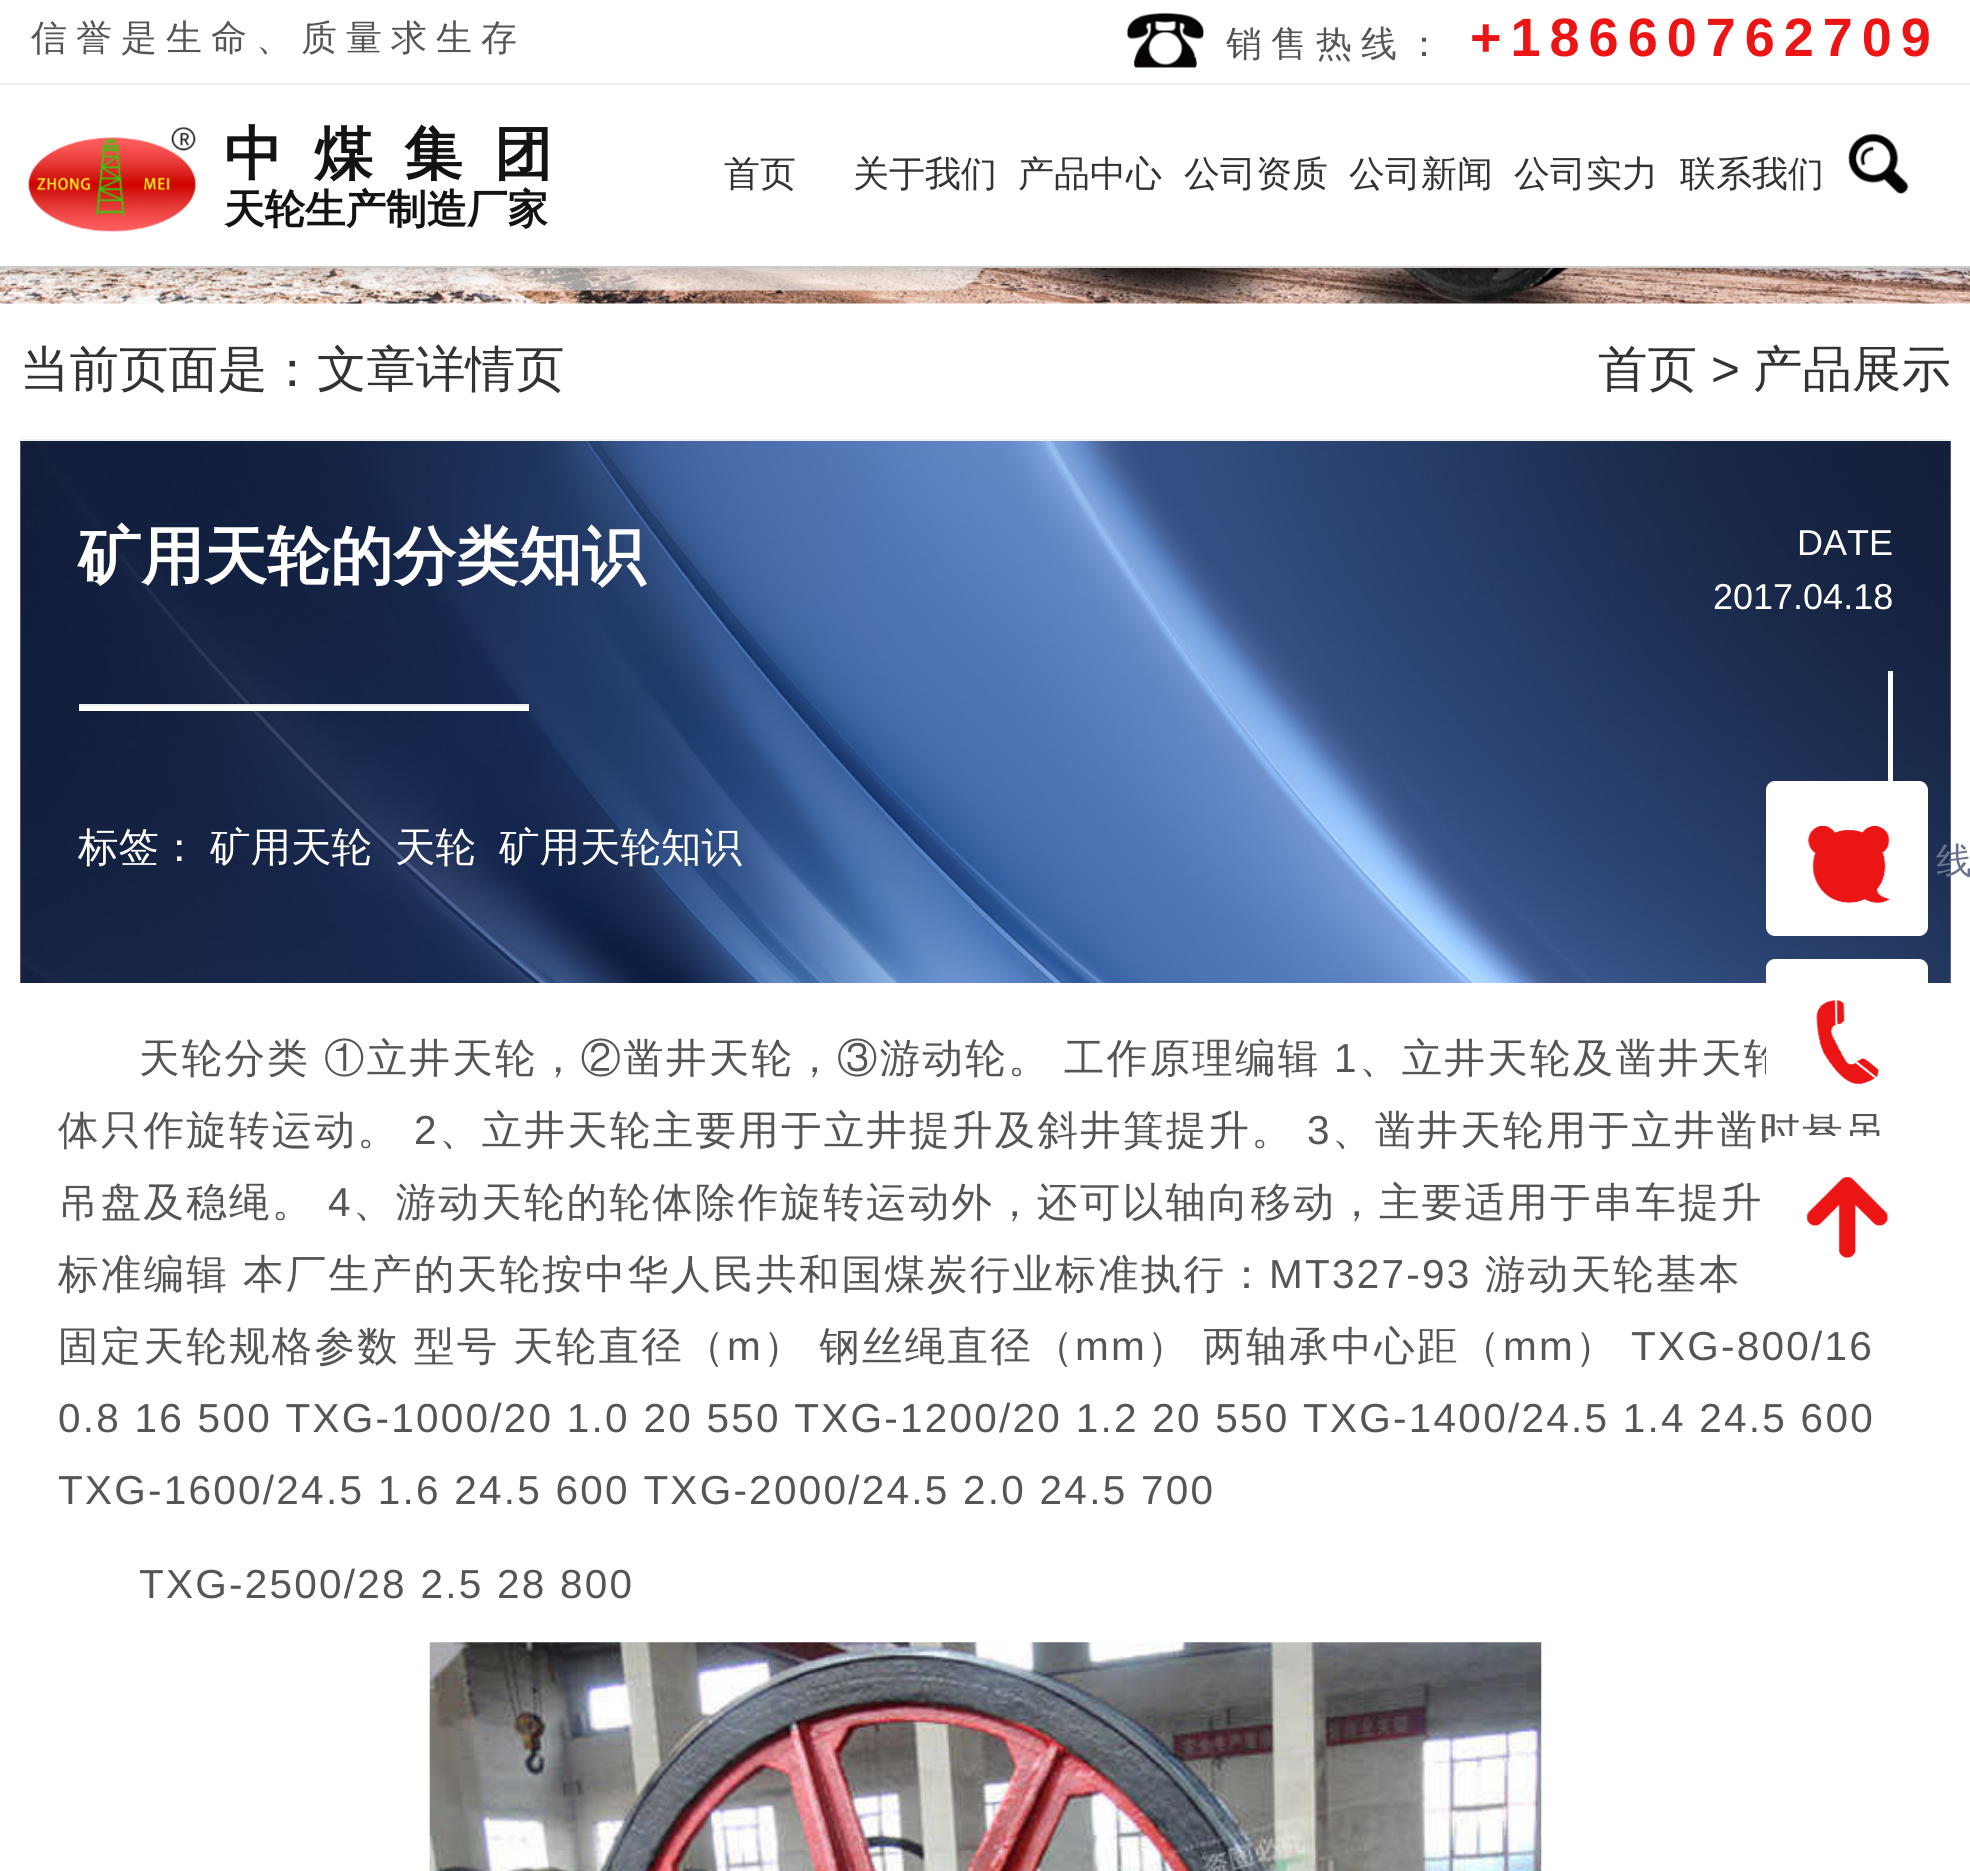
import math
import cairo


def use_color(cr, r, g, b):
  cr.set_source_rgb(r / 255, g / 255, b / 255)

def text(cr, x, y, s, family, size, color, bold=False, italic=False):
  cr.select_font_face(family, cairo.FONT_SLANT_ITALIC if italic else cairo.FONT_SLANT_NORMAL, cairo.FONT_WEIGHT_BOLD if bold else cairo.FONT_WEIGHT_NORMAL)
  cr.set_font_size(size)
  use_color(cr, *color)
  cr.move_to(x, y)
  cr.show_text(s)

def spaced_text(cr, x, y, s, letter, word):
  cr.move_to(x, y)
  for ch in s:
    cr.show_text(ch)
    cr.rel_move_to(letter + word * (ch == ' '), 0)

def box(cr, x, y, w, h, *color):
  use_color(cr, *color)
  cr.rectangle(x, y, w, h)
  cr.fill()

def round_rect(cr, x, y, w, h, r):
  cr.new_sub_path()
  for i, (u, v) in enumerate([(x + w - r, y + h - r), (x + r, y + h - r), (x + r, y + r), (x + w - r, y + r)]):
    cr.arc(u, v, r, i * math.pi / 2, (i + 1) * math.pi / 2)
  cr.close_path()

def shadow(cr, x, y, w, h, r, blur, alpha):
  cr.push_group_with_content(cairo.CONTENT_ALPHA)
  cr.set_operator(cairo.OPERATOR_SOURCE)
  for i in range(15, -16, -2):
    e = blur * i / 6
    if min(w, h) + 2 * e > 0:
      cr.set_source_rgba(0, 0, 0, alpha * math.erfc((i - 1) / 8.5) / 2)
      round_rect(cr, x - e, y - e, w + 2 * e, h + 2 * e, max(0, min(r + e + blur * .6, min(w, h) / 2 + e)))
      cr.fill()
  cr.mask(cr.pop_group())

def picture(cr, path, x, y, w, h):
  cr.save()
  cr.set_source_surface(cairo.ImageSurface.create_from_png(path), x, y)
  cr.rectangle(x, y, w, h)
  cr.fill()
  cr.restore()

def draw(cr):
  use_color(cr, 255, 255, 255)
  cr.paint()
  picture(cr, "img_04.png", 0, 268, 1970, 36)
  use_color(cr, 0, 0, 0)
  shadow(cr, -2, -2, 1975, 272, 0, 9, 0.18)
  box(cr, 0, 266, 1970, 2, 204, 204, 204)
  box(cr, 0, 0, 1970, 266, 255, 255, 255)
  box(cr, 0, 83, 1970, 2, 238, 238, 238)
  picture(cr, "img_01.png", 1125, 12, 79, 56)
  picture(cr, "img_02.png", 28, 127, 169, 105)
  picture(cr, "img_03.png", 1848, 133, 62, 61)
  box(cr, 20, 439, 1931, 2, 241, 241, 241)
  picture(cr, "img_05.png", 20, 441, 1931, 542)
  box(cr, 79, 706, 450, 5, 255, 255, 255)
  box(cr, 79, 704, 450, 2, 238, 238, 238)
  box(cr, 1888, 671, 5, 110, 255, 255, 255)
  box(cr, 1888, 671, 5, 2, 238, 238, 238)
  picture(cr, "img_06.png", 429, 1642, 1113, 229)
  use_color(cr, 255, 255, 255)
  round_rect(cr, 1766, 781, 162, 155, 9)
  cr.fill()
  picture(cr, "img_07.png", 1808, 825, 82, 78)
  cr.select_font_face("WenQuanYi Zen Hei Medium")
  cr.set_font_size(36)
  use_color(cr, 85, 85, 85)
  spaced_text(cr, 31, 50, "信誉是生命、质量求生存", 9, 0)
  spaced_text(cr, 1226, 56, "销售热线：", 9, 0)
  cr.select_font_face("Liberation Sans", cairo.FONT_SLANT_NORMAL, cairo.FONT_WEIGHT_BOLD)
  cr.set_font_size(54)
  use_color(cr, 235, 21, 21)
  spaced_text(cr, 1470, 56, "+18660762709", 9, 0)
  cr.select_font_face("WenQuanYi Zen Hei", cairo.FONT_SLANT_NORMAL, cairo.FONT_WEIGHT_BOLD)
  cr.set_font_size(58.5)
  use_color(cr, 19, 19, 19)
  spaced_text(cr, 224, 174, "中煤集团", 31.5, 0)
  text(cr, 224, 223, "天轮生产制造厂家", "WenQuanYi Zen Hei", 40.5, (19, 19, 19), bold=True)
  text(cr, 724, 186, "首页", "WenQuanYi Zen Hei Medium", 36, (51, 51, 51))
  text(cr, 853, 186, "关于我们", "WenQuanYi Zen Hei Medium", 36, (51, 51, 51))
  text(cr, 1018, 186, "产品中心", "WenQuanYi Zen Hei Medium", 36, (51, 51, 51))
  text(cr, 1184, 186, "公司资质", "WenQuanYi Zen Hei Medium", 36, (51, 51, 51))
  text(cr, 1349, 186, "公司新闻", "WenQuanYi Zen Hei Medium", 36, (51, 51, 51))
  text(cr, 1514, 186, "公司实力", "WenQuanYi Zen Hei Medium", 36, (51, 51, 51))
  text(cr, 1680, 186, "联系我们", "WenQuanYi Zen Hei Medium", 36, (51, 51, 51))
  text(cr, 20, 386, "当前页面是：文章详情页", "WenQuanYi Zen Hei Medium", 49.5, (51, 51, 51))
  text(cr, 1598, 386, "首页", "WenQuanYi Zen Hei Medium", 49.5, (51, 51, 51))
  text(cr, 1711, 386, ">", "Liberation Sans", 49.5, (51, 51, 51))
  text(cr, 1753, 386, "产品展示", "WenQuanYi Zen Hei Medium", 49.5, (51, 51, 51))
  text(cr, 78, 578, "矿用天轮的分类知识", "WenQuanYi Zen Hei", 63, (255, 255, 255), bold=True)
  text(cr, 78, 861, "标签：", "WenQuanYi Zen Hei Medium", 40.5, (255, 255, 255))
  text(cr, 210, 861, "矿用天轮", "WenQuanYi Zen Hei Medium", 40.5, (255, 255, 255))
  text(cr, 395, 861, "天轮", "WenQuanYi Zen Hei Medium", 40.5, (255, 255, 255))
  text(cr, 499, 861, "矿用天轮知识", "WenQuanYi Zen Hei Medium", 40.5, (255, 255, 255))
  text(cr, 1797, 555, "DATE", "Liberation Sans", 36, (255, 255, 255))
  text(cr, 1713, 609, "2017.04.18", "Liberation Sans", 36, (255, 255, 255))
  cr.select_font_face("WenQuanYi Zen Hei Medium")
  cr.set_font_size(40.5)
  use_color(cr, 85, 85, 85)
  spaced_text(cr, 139, 1072, "天轮分类", 2.25, 0)
  spaced_text(cr, 324, 1072, "①立井天轮，②凿井天轮，③游动轮。", 2.25, 0)
  spaced_text(cr, 1064, 1072, "工作原理编辑", 2.25, 0)
  cr.select_font_face("Liberation Sans")
  spaced_text(cr, 1334, 1072, "1", 2.25, 0)
  cr.select_font_face("WenQuanYi Zen Hei Medium")
  spaced_text(cr, 1359, 1072, "、立井天轮及凿井天轮", 2.25, 0)
  spaced_text(cr, 58, 1144, "体只作旋转运动。", 2.25, 0)
  cr.select_font_face("Liberation Sans")
  spaced_text(cr, 414, 1144, "2", 2.25, 0)
  cr.select_font_face("WenQuanYi Zen Hei Medium")
  spaced_text(cr, 439, 1144, "、立井天轮主要用于立井提升及斜井箕提升。", 2.25, 0)
  cr.select_font_face("Liberation Sans")
  spaced_text(cr, 1307, 1144, "3", 2.25, 0)
  cr.select_font_face("WenQuanYi Zen Hei Medium")
  spaced_text(cr, 1332, 1144, "、凿井天轮用于立井凿时悬吊", 2.25, 0)
  spaced_text(cr, 58, 1216, "吊盘及稳绳。", 2.25, 0)
  cr.select_font_face("Liberation Sans")
  spaced_text(cr, 328, 1216, "4", 2.25, 0)
  cr.select_font_face("WenQuanYi Zen Hei Medium")
  spaced_text(cr, 353, 1216, "、游动天轮的轮体除作旋转运动外，还可以轴向移动，主要适用于串车提升", 2.25, 0)
  spaced_text(cr, 58, 1288, "标准编辑", 2.25, 0)
  spaced_text(cr, 243, 1288, "本厂生产的天轮按中华人民共和国煤炭行业标准执行：", 2.25, 0)
  cr.select_font_face("Liberation Sans")
  spaced_text(cr, 1269, 1288, "MT327-93", 2.25, 0)
  cr.select_font_face("WenQuanYi Zen Hei Medium")
  spaced_text(cr, 1485, 1288, "游动天轮基本", 2.25, 0)
  spaced_text(cr, 58, 1360, "固定天轮规格参数", 2.25, 0)
  spaced_text(cr, 414, 1360, "型号 天轮直径（", 2.25, -1)
  cr.select_font_face("Liberation Sans")
  spaced_text(cr, 727, 1360, "m", 2.25, 0)
  cr.select_font_face("WenQuanYi Zen Hei Medium")
  spaced_text(cr, 763, 1360, "） 钢丝绳直径（", 2.25, -1)
  cr.select_font_face("Liberation Sans")
  spaced_text(cr, 1075, 1360, "mm", 2.25, 0)
  cr.select_font_face("WenQuanYi Zen Hei Medium")
  spaced_text(cr, 1147, 1360, "） 两轴承中心距（", 2.25, -1)
  cr.select_font_face("Liberation Sans")
  spaced_text(cr, 1503, 1360, "mm", 2.25, 0)
  cr.select_font_face("WenQuanYi Zen Hei Medium")
  spaced_text(cr, 1575, 1360, "）", 2.25, 0)
  cr.select_font_face("Liberation Sans")
  spaced_text(cr, 1631, 1360, "TXG-800/16", 2.25, 0)
  spaced_text(cr, 58, 1432, "0.8 16 500 TXG-1000/20 1.0 20 550 TXG-1200/20 1.2 20 550 TXG-1400/24.5 1.4 24.5 600", 2.25, 0)
  spaced_text(cr, 58, 1504, "TXG-1600/24.5 1.6 24.5 600 TXG-2000/24.5 2.0 24.5 700", 2.25, 0)
  spaced_text(cr, 139, 1598, "TXG-2500/28 2.5 28 800", 2.25, 0)
  text(cr, 1936, 873, "线", "WenQuanYi Zen Hei Medium", 36, (103, 115, 140))
  use_color(cr, 255, 255, 255)
  round_rect(cr, 1766, 959, 162, 155, 9)
  cr.fill()
  picture(cr, "img_08.png", 1816, 1000, 63, 84)
  round_rect(cr, 1766, 1136, 162, 151, 9)
  cr.fill()
  picture(cr, "img_09.png", 1806, 1177, 83, 81)


surface = cairo.ImageSurface(cairo.FORMAT_RGB24, 1970, 1871)
cr = cairo.Context(surface)
options = cairo.FontOptions()
options.set_hint_metrics(cairo.HINT_METRICS_OFF)
options.set_hint_style(cairo.HINT_STYLE_NONE)
cr.set_font_options(options)
cr.set_miter_limit(4)
draw(cr)
surface.write_to_png("out.png")
